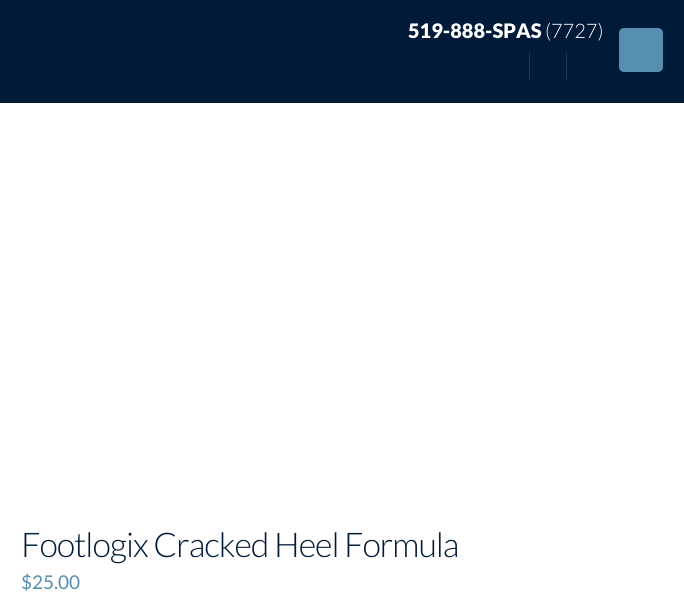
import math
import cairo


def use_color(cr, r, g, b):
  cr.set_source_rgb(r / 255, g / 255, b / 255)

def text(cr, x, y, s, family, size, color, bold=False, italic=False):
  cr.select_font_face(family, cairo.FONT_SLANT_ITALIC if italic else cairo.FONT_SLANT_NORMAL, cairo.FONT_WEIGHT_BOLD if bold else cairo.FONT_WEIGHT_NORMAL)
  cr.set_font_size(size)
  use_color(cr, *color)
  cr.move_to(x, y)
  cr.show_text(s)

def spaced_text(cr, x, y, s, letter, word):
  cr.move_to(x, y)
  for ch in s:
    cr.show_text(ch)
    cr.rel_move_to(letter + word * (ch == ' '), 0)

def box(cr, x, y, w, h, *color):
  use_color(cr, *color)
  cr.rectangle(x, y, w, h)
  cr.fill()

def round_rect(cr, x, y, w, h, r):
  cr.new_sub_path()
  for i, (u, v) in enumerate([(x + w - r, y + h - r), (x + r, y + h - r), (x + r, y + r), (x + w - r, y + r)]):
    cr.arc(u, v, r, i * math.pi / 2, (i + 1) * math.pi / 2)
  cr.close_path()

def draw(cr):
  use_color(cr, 255, 255, 255)
  cr.paint()
  box(cr, 0, 0, 684, 103, 0, 26, 55)
  use_color(cr, 86, 142, 176)
  round_rect(cr, 619, 28, 44, 44, 5)
  cr.fill()
  box(cr, 529, 52, 1, 28, 30, 51, 80)
  box(cr, 566, 52, 1, 28, 30, 51, 80)
  text(cr, 408, 38, "519-888-SPAS", "Lato Black", 20, (255, 255, 255))
  text(cr, 545, 38, "(7727)", "Lato Light", 20, (255, 255, 255))
  cr.set_font_size(34)
  use_color(cr, 0, 26, 55)
  spaced_text(cr, 21, 557, "Footlogix Cracked Heel Formula", -1, 0)
  text(cr, 21, 589, "$25.00", "Lato", 19, (86, 142, 176))


surface = cairo.ImageSurface(cairo.FORMAT_RGB24, 684, 602)
cr = cairo.Context(surface)
options = cairo.FontOptions()
options.set_hint_metrics(cairo.HINT_METRICS_OFF)
options.set_hint_style(cairo.HINT_STYLE_NONE)
cr.set_font_options(options)
cr.set_miter_limit(4)
draw(cr)
surface.write_to_png("out.png")
